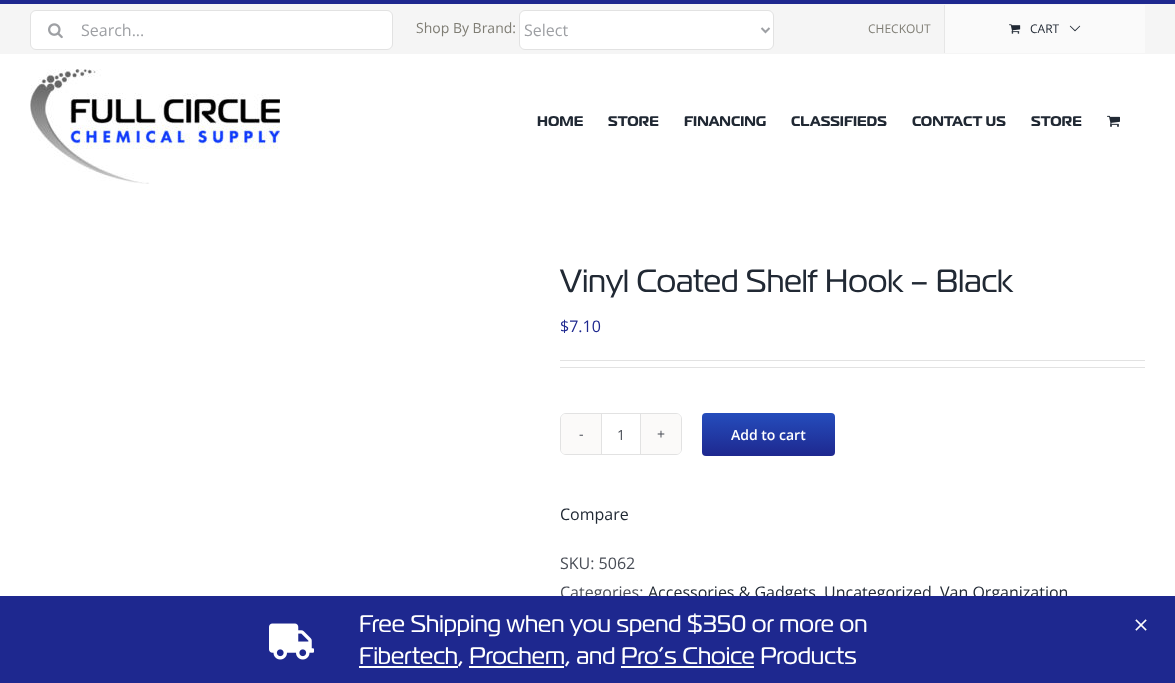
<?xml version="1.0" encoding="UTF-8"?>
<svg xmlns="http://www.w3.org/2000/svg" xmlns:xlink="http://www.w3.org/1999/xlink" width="1175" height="683">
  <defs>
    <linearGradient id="g1" gradientUnits="userSpaceOnUse" x1="769" y1="413" x2="769" y2="456"><stop offset="0" stop-color="#254dbc" /><stop offset="1" stop-color="#1e288f" /></linearGradient>
  </defs>
  <rect width="100%" height="100%" fill="#ffffff" />
  <rect y="4" width="1175" height="50" fill="#f5f5f5" />
  <rect width="1175" height="4" fill="#1e288f" />
  <rect x="30.5" y="10.5" width="362" height="39" rx="5.5" fill="#ffffff" stroke="#e2e2e2" />
  <image x="48" y="23" width="15" height="16" xlink:href="image1.png" />
  <rect x="519.5" y="10.5" width="254" height="39" rx="5.5" fill="#ffffff" stroke="#e2e2e2" />
  <path d="M 761.5 28 l 4 4 l 4 -4" fill="none" stroke="#9ea0a4" stroke-width="2" />
  <rect x="944" y="5" width="1" height="48" fill="#e6e6e6" />
  <rect x="945" y="5" width="200" height="48" fill="#fafafa" />
  <image x="1009" y="24" width="12" height="10" xlink:href="image2.png" />
  <image x="1069" y="25" width="12" height="7" xlink:href="image3.png" />
  <image x="30" y="69" width="250" height="115" xlink:href="image4.png" />
  <image x="1107" y="115" width="13" height="12" xlink:href="image5.png" />
  <rect x="560" y="360" width="585" height="1" fill="#e2e2e2" />
  <rect x="560" y="367" width="585" height="1" fill="#e2e2e2" />
  <rect x="560.5" y="413.5" width="121" height="41" rx="5.5" fill="none" stroke="#e2e2e2" />
  <path d="M 566 414 h 35 v 40 h -35 c -3 0 -5 -2 -5 -5 v -30 c 0 -3 2 -5 5 -5 z" fill="#fbfaf9" />
  <rect x="640" y="414" width="1" height="40" fill="#e2e2e2" />
  <rect x="601" y="414" width="1" height="40" fill="#e2e2e2" />
  <path d="M 641 414 h 35 c 3 0 5 2 5 5 v 30 c 0 3 -2 5 -5 5 h -35 z" fill="#fbfaf9" />
  <rect x="702" y="413" width="133" height="43" rx="4" fill="url(#g1)" />
  <text x="81" y="36" style="font-family: Open Sans; font-size: 16px; fill: #9ea0a4">Search...</text>
  <text x="416" y="33" style="font-family: Open Sans; font-size: 14px; fill: #7f7d74">Shop By Brand:</text>
  <text x="524" y="36" style="font-family: Open Sans; font-size: 16px; fill: #9ea0a4">Select</text>
  <text x="868" y="33" style="font-family: Open Sans; font-size: 12px; fill: #7f7d74">CHECKOUT</text>
  <text x="1030" y="33" style="font-family: Open Sans; font-size: 12px; fill: #212934">CART</text>
  <text x="537" y="126" style="font-family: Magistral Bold; font-size: 14px; font-weight: bold; fill: #212934">HOME</text>
  <text x="608" y="126" style="font-family: Magistral Bold; font-size: 14px; font-weight: bold; fill: #212934">STORE</text>
  <text x="684" y="126" style="font-family: Magistral Bold; font-size: 14px; font-weight: bold; fill: #212934">FINANCING</text>
  <text x="791" y="126" style="font-family: Magistral Bold; font-size: 14px; font-weight: bold; fill: #212934">CLASSIFIEDS</text>
  <text x="912" y="126" style="font-family: Magistral Bold; font-size: 14px; font-weight: bold; fill: #212934">CONTACT US</text>
  <text x="1031" y="126" style="font-family: Magistral Bold; font-size: 14px; font-weight: bold; fill: #212934">STORE</text>
  <text x="560" y="292" style="font-family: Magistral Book; font-size: 32px; fill: #212934">Vinyl Coated Shelf Hook – Black</text>
  <text x="560" y="332" style="font-family: Open Sans; font-size: 16px; fill: #1e288f">$7.10</text>
  <text x="579" y="439" style="font-family: Open Sans; font-size: 14px; fill: #4a4e57">-</text>
  <text x="617" y="440" style="font-family: Open Sans; font-size: 14px; fill: #4a4e57">1</text>
  <text x="657" y="439" style="font-family: Open Sans; font-size: 14px; fill: #4a4e57">+</text>
  <text x="731" y="440" style="font-family: Open Sans; font-size: 14px; font-weight: 600; fill: #ffffff">Add to cart</text>
  <text x="560" y="520" style="font-family: Open Sans; font-size: 16px; fill: #212934">Compare</text>
  <text x="560" y="569" style="font-family: Open Sans; font-size: 16px; fill: #4a4e57">SKU: 5062</text>
  <text x="560" y="598" style="font-family: Open Sans; font-size: 16px; fill: #4a4e57">Categories:</text>
  <text x="648" y="598" style="font-family: Open Sans; font-size: 16px; fill: #212934">Accessories &amp; Gadgets</text>
  <text x="824" y="598" style="font-family: Open Sans; font-size: 16px; fill: #212934">Uncategorized</text>
  <text x="940" y="598" style="font-family: Open Sans; font-size: 16px; fill: #212934">Van Organization</text>
  <rect y="596" width="1175" height="87" fill="#1e288f" />
  <image x="269" y="623" width="45" height="37" xlink:href="image6.png" />
  <text x="359" y="632" style="font-family: Magistral Book; font-size: 24px; fill: #ffffff">Free Shipping when you spend $350 or more on</text>
  <rect x="359" y="666" width="99" height="2" fill="#ffffff" />
  <text x="359" y="664" style="font-family: Magistral Book; font-size: 24px; fill: #ffffff">Fibertech, Prochem, and Pro’s Choice Products</text>
  <rect x="469" y="666" width="95" height="2" fill="#ffffff" />
  <rect x="621" y="666" width="133" height="2" fill="#ffffff" />
  <image x="1135" y="619" width="12" height="12" xlink:href="image7.png" />
</svg>
